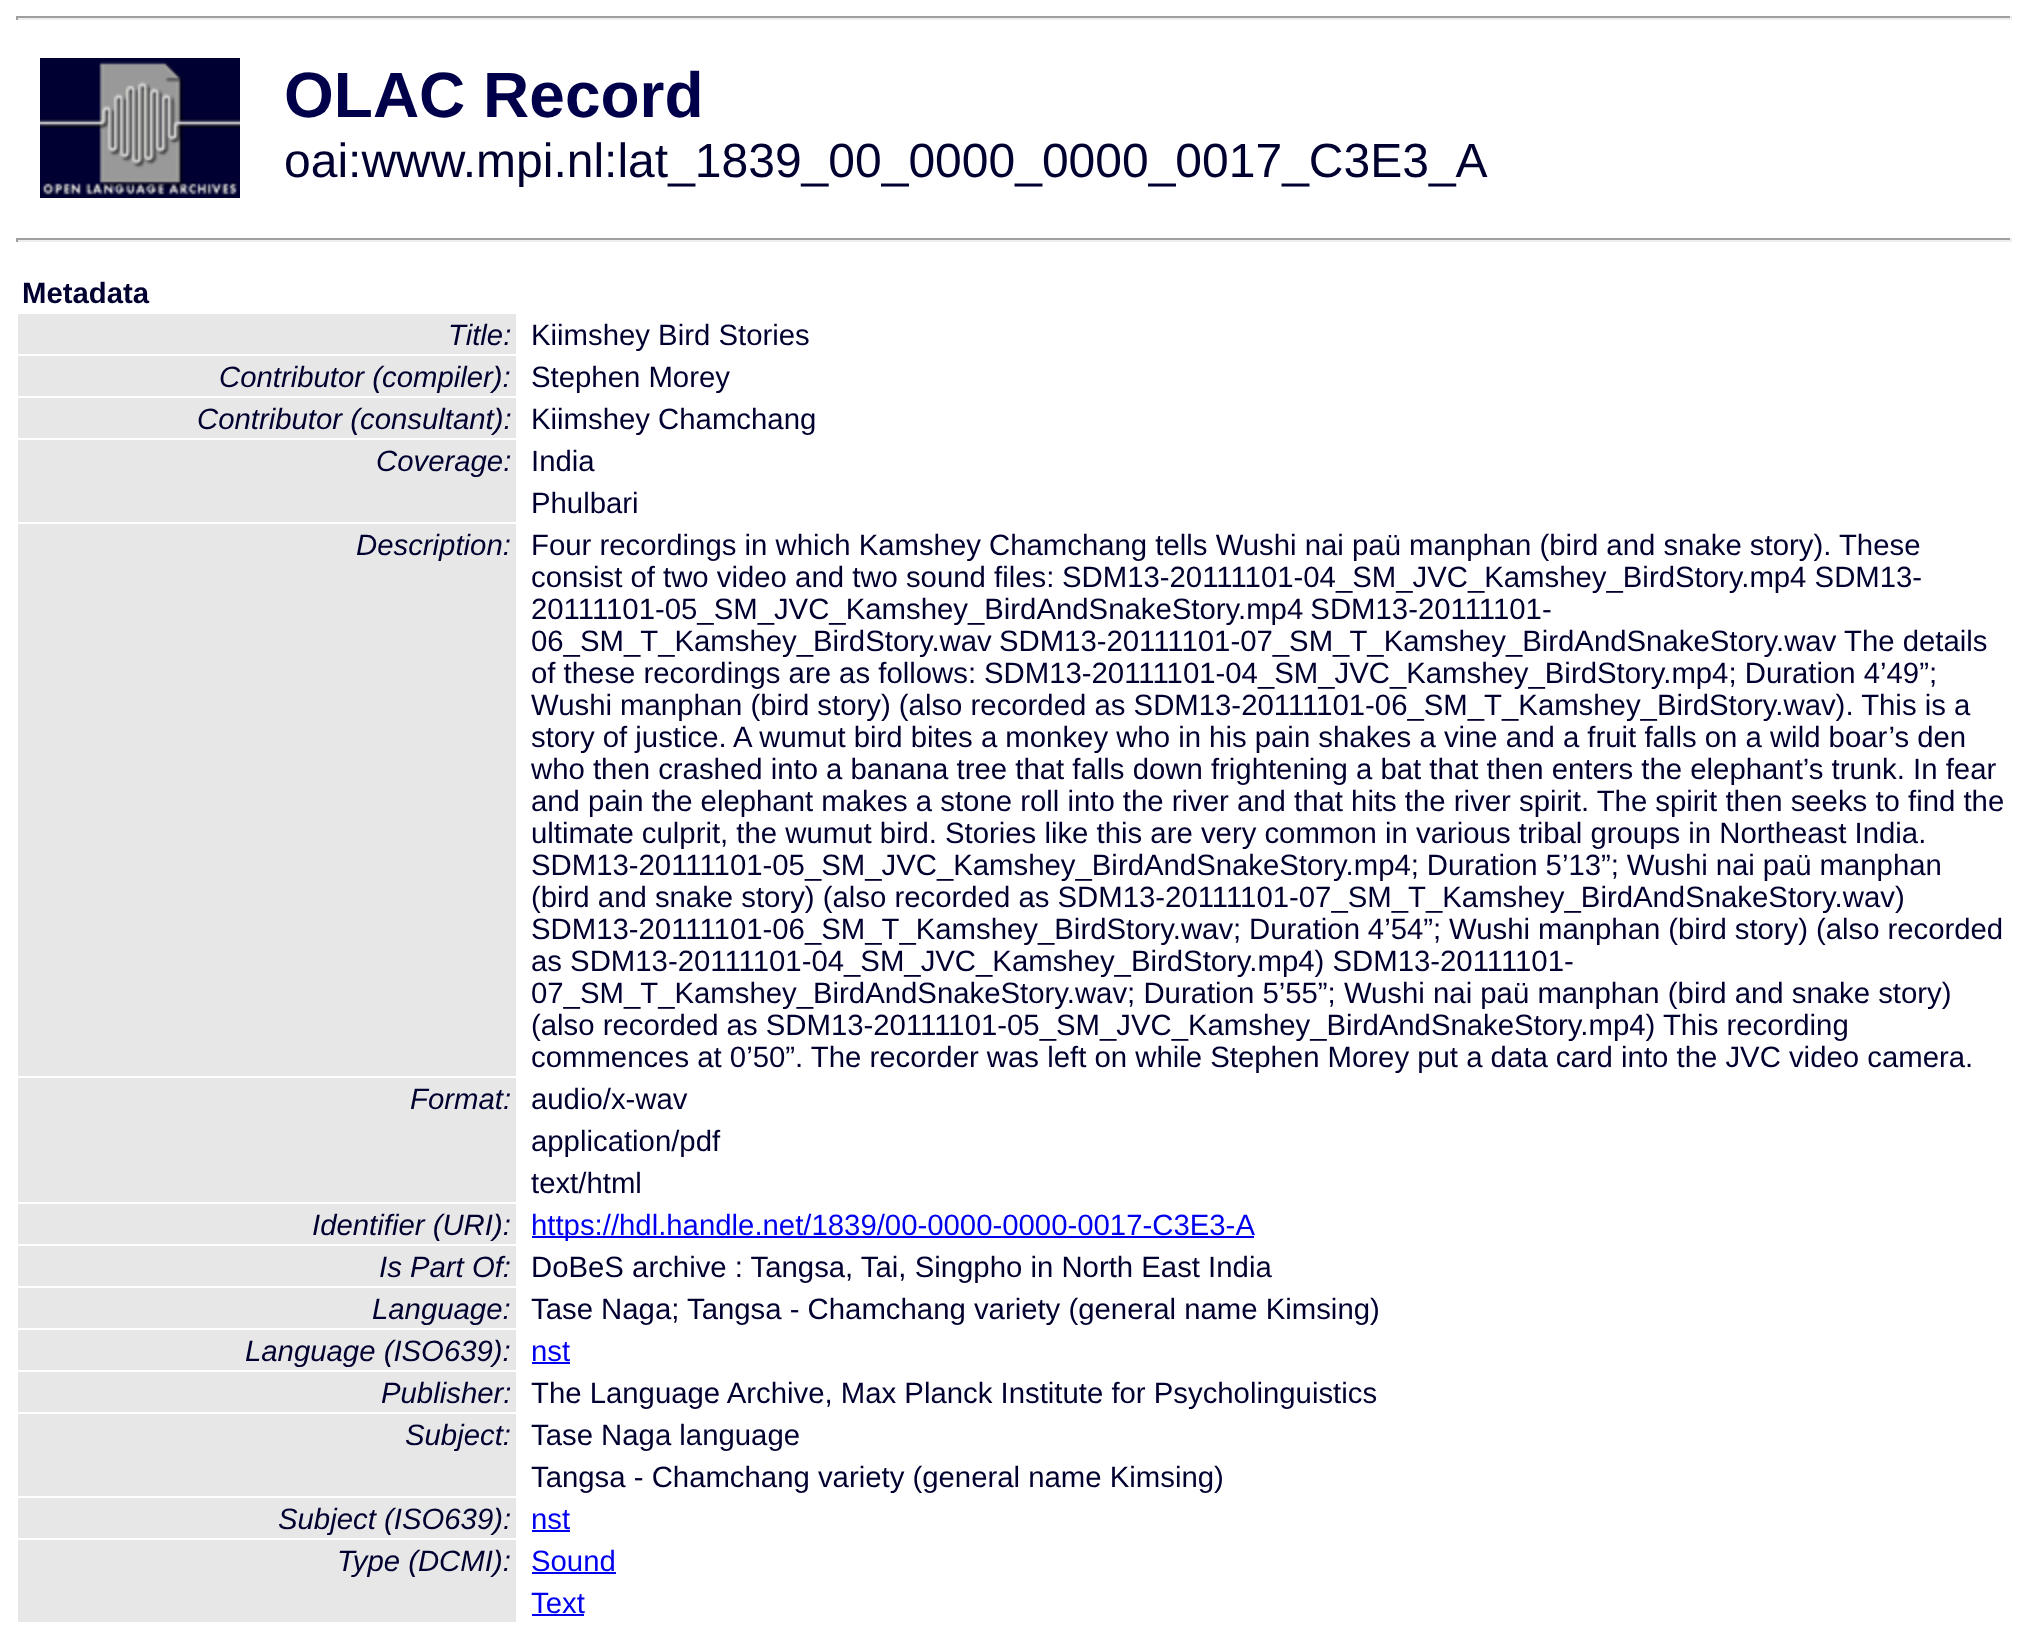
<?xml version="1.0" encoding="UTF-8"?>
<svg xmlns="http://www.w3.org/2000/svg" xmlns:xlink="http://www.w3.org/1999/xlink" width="2028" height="1640">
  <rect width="100%" height="100%" fill="#ffffff" />
  <rect x="16" y="16" width="1996" height="2" fill="#9f9f9f" />
  <rect x="2010" y="16" width="2" height="4" fill="#eeeeee" />
  <rect x="16" y="18" width="1996" height="2" fill="#eeeeee" />
  <rect x="16" y="16" width="2" height="4" fill="#9f9f9f" />
  <image x="40" y="58" width="200" height="140" xlink:href="image1.png" />
  <rect x="16" y="238" width="1996" height="2" fill="#9f9f9f" />
  <rect x="2010" y="238" width="2" height="4" fill="#eeeeee" />
  <rect x="16" y="240" width="1996" height="2" fill="#eeeeee" />
  <rect x="16" y="238" width="2" height="4" fill="#9f9f9f" />
  <rect x="18" y="314" width="498" height="40" fill="#e7e7e7" />
  <rect x="18" y="356" width="498" height="40" fill="#e7e7e7" />
  <rect x="18" y="398" width="498" height="40" fill="#e7e7e7" />
  <rect x="18" y="440" width="498" height="82" fill="#e7e7e7" />
  <rect x="18" y="524" width="498" height="552" fill="#e7e7e7" />
  <rect x="18" y="1078" width="498" height="124" fill="#e7e7e7" />
  <rect x="18" y="1204" width="498" height="40" fill="#e7e7e7" />
  <rect x="532" y="1236" width="722" height="2" fill="#0000ee" />
  <rect x="18" y="1246" width="498" height="40" fill="#e7e7e7" />
  <rect x="18" y="1288" width="498" height="40" fill="#e7e7e7" />
  <rect x="18" y="1330" width="498" height="40" fill="#e7e7e7" />
  <rect x="532" y="1362" width="38" height="2" fill="#0000ee" />
  <rect x="18" y="1372" width="498" height="40" fill="#e7e7e7" />
  <rect x="18" y="1414" width="498" height="82" fill="#e7e7e7" />
  <rect x="18" y="1498" width="498" height="40" fill="#e7e7e7" />
  <rect x="532" y="1530" width="38" height="2" fill="#0000ee" />
  <rect x="18" y="1540" width="498" height="82" fill="#e7e7e7" />
  <rect x="532" y="1572" width="84" height="2" fill="#0000ee" />
  <rect x="532" y="1614" width="52" height="2" fill="#0000ee" />
  <text x="284" y="117" style="font-family: Liberation Sans; font-size: 64px; font-weight: bold; fill: #00004a">OLAC Record</text>
  <text x="284" y="177" style="font-family: Liberation Sans; font-size: 48px; fill: #000030">oai:www.mpi.nl:lat_1839_00_0000_0000_0017_C3E3_A</text>
  <text x="22" y="303" style="font-family: Liberation Sans; font-size: 29.33px; font-weight: bold; fill: #000030">Metadata</text>
  <text x="448" y="345" style="font-family: Liberation Sans; font-size: 29.33px; font-style: italic; fill: #000030">Title:</text>
  <text x="531" y="345" style="font-family: Liberation Sans; font-size: 29.33px; fill: #000030">Kiimshey Bird Stories</text>
  <text x="219" y="387" style="font-family: Liberation Sans; font-size: 29.33px; font-style: italic; fill: #000030">Contributor (compiler):</text>
  <text x="531" y="387" style="font-family: Liberation Sans; font-size: 29.33px; fill: #000030">Stephen Morey</text>
  <text x="197" y="429" style="font-family: Liberation Sans; font-size: 29.33px; font-style: italic; fill: #000030">Contributor (consultant):</text>
  <text x="531" y="429" style="font-family: Liberation Sans; font-size: 29.33px; fill: #000030">Kiimshey Chamchang</text>
  <text x="376" y="471" style="font-family: Liberation Sans; font-size: 29.33px; font-style: italic; fill: #000030">Coverage:</text>
  <text x="531" y="471" style="font-family: Liberation Sans; font-size: 29.33px; fill: #000030">India</text>
  <text x="531" y="513" style="font-family: Liberation Sans; font-size: 29.33px; fill: #000030">Phulbari</text>
  <text x="356" y="555" style="font-family: Liberation Sans; font-size: 29.33px; font-style: italic; fill: #000030">Description:</text>
  <text x="531" y="555" style="font-family: Liberation Sans; font-size: 29.33px; fill: #000030">Four recordings in which Kamshey Chamchang tells Wushi nai paü manphan (bird and snake story). These</text>
  <text x="531" y="587" style="font-family: Liberation Sans; font-size: 29.33px; fill: #000030">consist of two video and two sound files:</text>
  <text x="1062" y="587" style="font-family: Liberation Sans; font-size: 29.33px; fill: #000030">SDM13-20111101-04_SM_JVC_Kamshey_BirdStory.mp4 SDM13-</text>
  <text x="531" y="619" word-spacing="-1" style="font-family: Liberation Sans; font-size: 29.33px; fill: #000030">20111101-05_SM_JVC_Kamshey_BirdAndSnakeStory.mp4 SDM13-20111101-</text>
  <text x="531" y="651" word-spacing="-1" style="font-family: Liberation Sans; font-size: 29.33px; fill: #000030">06_SM_T_Kamshey_BirdStory.wav SDM13-20111101-07_SM_T_Kamshey_BirdAndSnakeStory.wav</text>
  <text x="1844" y="651" style="font-family: Liberation Sans; font-size: 29.33px; fill: #000030">The details</text>
  <text x="531" y="683" style="font-family: Liberation Sans; font-size: 29.33px; fill: #000030">of these recordings are as follows:</text>
  <text x="984" y="683" style="font-family: Liberation Sans; font-size: 29.33px; fill: #000030">SDM13-20111101-04_SM_JVC_Kamshey_BirdStory.mp4; Duration 4’49”;</text>
  <text x="531" y="715" style="font-family: Liberation Sans; font-size: 29.33px; fill: #000030">Wushi manphan (bird story) (also recorded as SDM13-20111101-06_SM_T_Kamshey_BirdStory.wav). This is a</text>
  <text x="531" y="747" style="font-family: Liberation Sans; font-size: 29.33px; fill: #000030">story of justice. A wumut bird bites a monkey who in his pain shakes a vine and a fruit falls on a wild boar’s den</text>
  <text x="531" y="779" style="font-family: Liberation Sans; font-size: 29.33px; fill: #000030">who then crashed into a banana tree that falls down frightening a bat that then enters the elephant’s trunk. In fear</text>
  <text x="531" y="811" style="font-family: Liberation Sans; font-size: 29.33px; fill: #000030">and pain the elephant makes a stone roll into the river and that hits the river spirit. The spirit then seeks to find the</text>
  <text x="531" y="843" style="font-family: Liberation Sans; font-size: 29.33px; fill: #000030">ultimate culprit, the wumut bird.</text>
  <text x="945" y="843" style="font-family: Liberation Sans; font-size: 29.33px; fill: #000030">Stories like this are very common in various tribal groups in Northeast India.</text>
  <text x="531" y="875" word-spacing="-0.25" style="font-family: Liberation Sans; font-size: 29.33px; fill: #000030">SDM13-20111101-05_SM_JVC_Kamshey_BirdAndSnakeStory.mp4; Duration 5’13”; Wushi nai paü manphan</text>
  <text x="531" y="907" style="font-family: Liberation Sans; font-size: 29.33px; fill: #000030">(bird and snake story) (also recorded as SDM13-20111101-07_SM_T_Kamshey_BirdAndSnakeStory.wav)</text>
  <text x="531" y="939" word-spacing="-0.25" style="font-family: Liberation Sans; font-size: 29.33px; fill: #000030">SDM13-20111101-06_SM_T_Kamshey_BirdStory.wav; Duration 4’54”; Wushi manphan (bird story) (also recorded</text>
  <text x="531" y="971" style="font-family: Liberation Sans; font-size: 29.33px; fill: #000030">as SDM13-20111101-04_SM_JVC_Kamshey_BirdStory.mp4) SDM13-20111101-</text>
  <text x="531" y="1003" style="font-family: Liberation Sans; font-size: 29.33px; fill: #000030">07_SM_T_Kamshey_BirdAndSnakeStory.wav; Duration 5’55”; Wushi nai paü manphan (bird and snake story)</text>
  <text x="531" y="1035" style="font-family: Liberation Sans; font-size: 29.33px; fill: #000030">(also recorded as SDM13-20111101-05_SM_JVC_Kamshey_BirdAndSnakeStory.mp4) This recording</text>
  <text x="531" y="1067" style="font-family: Liberation Sans; font-size: 29.33px; fill: #000030">commences at 0’50”. The recorder was left on while Stephen Morey put a data card into the JVC video camera.</text>
  <text x="410" y="1109" style="font-family: Liberation Sans; font-size: 29.33px; font-style: italic; fill: #000030">Format:</text>
  <text x="531" y="1109" style="font-family: Liberation Sans; font-size: 29.33px; fill: #000030">audio/x-wav</text>
  <text x="531" y="1151" style="font-family: Liberation Sans; font-size: 29.33px; fill: #000030">application/pdf</text>
  <text x="531" y="1193" style="font-family: Liberation Sans; font-size: 29.33px; fill: #000030">text/html</text>
  <text x="312" y="1235" style="font-family: Liberation Sans; font-size: 29.33px; font-style: italic; fill: #000030">Identifier (URI):</text>
  <text x="531" y="1235" style="font-family: Liberation Sans; font-size: 29.33px; fill: #0000ee">https://hdl.handle.net/1839/00-0000-0000-0017-C3E3-A</text>
  <text x="379" y="1277" style="font-family: Liberation Sans; font-size: 29.33px; font-style: italic; fill: #000030">Is Part Of:</text>
  <text x="531" y="1277" style="font-family: Liberation Sans; font-size: 29.33px; fill: #000030">DoBeS archive : Tangsa, Tai, Singpho in North East India</text>
  <text x="372" y="1319" style="font-family: Liberation Sans; font-size: 29.33px; font-style: italic; fill: #000030">Language:</text>
  <text x="531" y="1319" style="font-family: Liberation Sans; font-size: 29.33px; fill: #000030">Tase Naga; Tangsa - Chamchang variety (general name Kimsing)</text>
  <text x="245" y="1361" style="font-family: Liberation Sans; font-size: 29.33px; font-style: italic; fill: #000030">Language (ISO639):</text>
  <text x="531" y="1361" style="font-family: Liberation Sans; font-size: 29.33px; fill: #0000ee">nst</text>
  <text x="381" y="1403" style="font-family: Liberation Sans; font-size: 29.33px; font-style: italic; fill: #000030">Publisher:</text>
  <text x="531" y="1403" style="font-family: Liberation Sans; font-size: 29.33px; fill: #000030">The Language Archive, Max Planck Institute for Psycholinguistics</text>
  <text x="405" y="1445" style="font-family: Liberation Sans; font-size: 29.33px; font-style: italic; fill: #000030">Subject:</text>
  <text x="531" y="1445" style="font-family: Liberation Sans; font-size: 29.33px; fill: #000030">Tase Naga language</text>
  <text x="531" y="1487" style="font-family: Liberation Sans; font-size: 29.33px; fill: #000030">Tangsa - Chamchang variety (general name Kimsing)</text>
  <text x="278" y="1529" style="font-family: Liberation Sans; font-size: 29.33px; font-style: italic; fill: #000030">Subject (ISO639):</text>
  <text x="531" y="1529" style="font-family: Liberation Sans; font-size: 29.33px; fill: #0000ee">nst</text>
  <text x="337" y="1571" style="font-family: Liberation Sans; font-size: 29.33px; font-style: italic; fill: #000030">Type (DCMI):</text>
  <text x="531" y="1571" style="font-family: Liberation Sans; font-size: 29.33px; fill: #0000ee">Sound</text>
  <text x="531" y="1613" style="font-family: Liberation Sans; font-size: 29.33px; fill: #0000ee">Text</text>
</svg>
